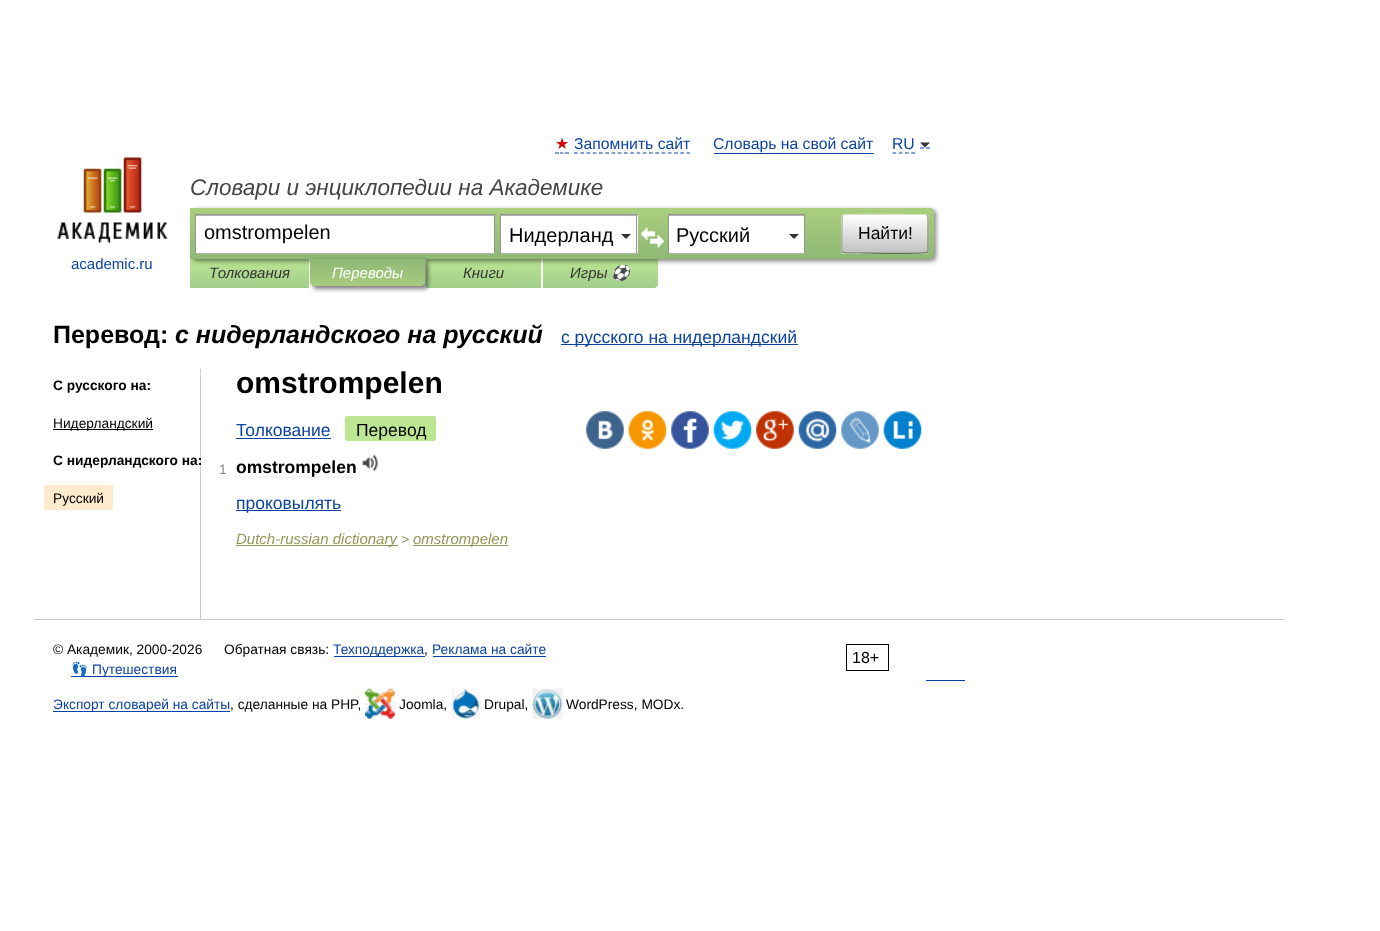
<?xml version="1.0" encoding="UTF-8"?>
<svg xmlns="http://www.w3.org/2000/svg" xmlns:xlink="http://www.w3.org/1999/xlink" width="1380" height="931">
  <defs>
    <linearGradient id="g1" gradientUnits="userSpaceOnUse" x1="249" y1="259" x2="249" y2="288"><stop offset="0" stop-color="#bde693" /><stop offset="1" stop-color="#a0ce8a" /></linearGradient>
    <linearGradient id="g2" gradientUnits="userSpaceOnUse" x1="484" y1="259" x2="484" y2="288"><stop offset="0" stop-color="#bde693" /><stop offset="1" stop-color="#a0ce8a" /></linearGradient>
    <linearGradient id="g3" gradientUnits="userSpaceOnUse" x1="600" y1="259" x2="600" y2="288"><stop offset="0" stop-color="#bde693" /><stop offset="1" stop-color="#a0ce8a" /></linearGradient>
    <linearGradient id="g4" gradientUnits="userSpaceOnUse" x1="562" y1="207" x2="562" y2="259"><stop offset="0" stop-color="#abcf7e" /><stop offset="1" stop-color="#8eb874" /></linearGradient>
    <clipPath id="clip1"><rect x="841" y="214" width="88" height="40" rx="4" /></clipPath>
    <linearGradient id="g5" gradientUnits="userSpaceOnUse" x1="885" y1="178" x2="885" y2="215"><stop offset="0" stop-color="#ffffff" /><stop offset="1" stop-color="#c1c1c1" /></linearGradient>
    <linearGradient id="g6" gradientUnits="userSpaceOnUse" x1="885" y1="215" x2="885" y2="253"><stop offset="0" stop-color="#ffffff" /><stop offset="1" stop-color="#c1c1c1" /></linearGradient>
    <linearGradient id="g7" gradientUnits="userSpaceOnUse" x1="885" y1="253" x2="885" y2="290"><stop offset="0" stop-color="#ffffff" /><stop offset="1" stop-color="#c1c1c1" /></linearGradient>
    <linearGradient id="g8" gradientUnits="userSpaceOnUse" x1="368" y1="259" x2="368" y2="286"><stop offset="0" stop-color="#8fb875" /><stop offset="1" stop-color="#a7cc7d" /></linearGradient>
  </defs>
  <rect width="100%" height="100%" fill="#ffffff" />
  <path d="M 555 153 h 4 m 1 0 h 3.5 m 1.5 0 h 4" fill="none" stroke="#0044aa" stroke-width="1.2" />
  <path d="M 574 153 h 116" fill="none" stroke="#0044aa" stroke-width="1.2" stroke-dasharray="3.75 2.5" />
  <rect x="714" y="153" width="160" height="1" fill="#0d44a0" />
  <path d="M 892.5 153 h 22.5" fill="none" stroke="#0044aa" stroke-width="1.2" stroke-dasharray="3.75 2.5" />
  <path d="M 920 148 h 4 m 2 0 h 4" fill="none" stroke="#0044aa" stroke-width="1.2" />
  <path d="M 920 142.5 h 10 l -5 5 z" fill="#333333" />
  <rect x="190" y="259" width="119" height="29" fill="url(#g1)" />
  <rect x="426" y="259" width="115" height="29" fill="url(#g2)" />
  <path d="M 543 259 h 115 v 25 c 0 2 -2 4 -4 4 h -111 z" fill="url(#g3)" />
  <rect x="193" y="210" width="743" height="51" rx="4" fill="#000000" fill-opacity="0.5" filter="blur(2.5px)" />
  <path d="M 190 208 h 740 c 2 0 4 2 4 4 v 43 c 0 2 -2 4 -4 4 h -740 z" fill="url(#g4)" />
  <rect x="196" y="216" width="298" height="37" fill="#ffffff" />
  <rect x="196" y="215" width="298" height="1" fill="#b3b3b3" />
  <rect x="195" y="214" width="300" height="1" fill="#949494" />
  <rect x="494" y="214" width="1" height="40" fill="#949494" />
  <rect x="195" y="253" width="300" height="1" fill="#b4b4b4" />
  <rect x="195" y="214" width="1" height="40" fill="#949494" />
  <rect x="501" y="215" width="137" height="38" fill="#ffffff" />
  <rect x="501" y="215" width="135" height="1" fill="#b3b3b3" />
  <rect x="500" y="214" width="138" height="1" fill="#949494" />
  <rect x="636" y="214" width="1" height="40" fill="#949494" />
  <rect x="500" y="253" width="138" height="1" fill="#b4b4b4" />
  <rect x="500" y="214" width="1" height="40" fill="#949494" />
  <path d="M 621 234 h 10 l -5 5 z" fill="#333333" />
  <image x="641" y="227" width="23" height="21" xlink:href="image1.png" />
  <rect x="669" y="216" width="135" height="37" fill="#ffffff" />
  <rect x="669" y="215" width="135" height="1" fill="#b3b3b3" />
  <rect x="668" y="214" width="137" height="1" fill="#949494" />
  <rect x="804" y="214" width="1" height="40" fill="#949494" />
  <rect x="668" y="253" width="137" height="1" fill="#b4b4b4" />
  <rect x="668" y="214" width="1" height="40" fill="#949494" />
  <path d="M 789 234 h 10 l -5 5 z" fill="#333333" />
  <g clip-path="url(#clip1)">
    <rect x="841" y="214" width="88" height="1" fill="url(#g5)" />
    <rect x="841" y="215" width="88" height="38" fill="url(#g6)" />
    <rect x="841" y="253" width="88" height="1" fill="url(#g7)" />
  </g>
  <path d="M 843 215.5 v -0.5 c 2 -1.5 61 -0.5 68.5 -0.5 h 13.5 l 2 1" fill="none" stroke="#d1e4bc" stroke-width="1.2" />
  <path d="M 927 215.5 c 1 0.5 1 1 1 2 v 32.5 c 0 1 0 1.5 -1 2" fill="none" stroke="#7a8e69" stroke-width="1.2" />
  <path d="M 927 252 v 0.5 c -2 1.5 -61 0.5 -68.5 0.5 h -13.5 l -2 -1" fill="none" stroke="#5d7250" stroke-width="1.2" />
  <path d="M 843 252 c -1 -0.5 -1 -1 -1 -2 v -32.5 c 0 -1 0 -1.5 1 -2" fill="none" stroke="#9aae89" stroke-width="1.2" />
  <image x="57" y="157" width="111" height="86" xlink:href="image2.png" />
  <rect x="313" y="261" width="115" height="28" rx="4" fill="#000000" fill-opacity="0.5" filter="blur(2px)" />
  <path d="M 310 259 h 115 v 23 c 0 2 -2 4 -4 4 h -107 c -2 0 -4 -2 -4 -4 z" fill="url(#g8)" />
  <rect x="561" y="344" width="237" height="1" fill="#0d44a0" />
  <rect x="200" y="369" width="1" height="250" fill="#cccccc" />
  <rect x="53" y="429" width="100" height="1" fill="#000000" />
  <rect x="44" y="485" width="69" height="25" fill="#fcebcc" />
  <rect x="236" y="438" width="95" height="1" fill="#0d44a0" />
  <rect x="345" y="416" width="91" height="25" rx="2.5" fill="#bde693" />
  <image x="586" y="411" width="38" height="38" xlink:href="image3.png" />
  <image x="628" y="411" width="39" height="38" xlink:href="image4.png" />
  <image x="671" y="411" width="38" height="38" xlink:href="image5.png" />
  <image x="713" y="411" width="39" height="38" xlink:href="image6.png" />
  <image x="756" y="411" width="38" height="38" xlink:href="image7.png" />
  <image x="798" y="411" width="39" height="38" xlink:href="image8.png" />
  <image x="841" y="411" width="38" height="38" xlink:href="image9.png" />
  <image x="883" y="411" width="39" height="38" xlink:href="image10.png" />
  <path d="M 219 477 h 1 m 1.5 0 h 1 m 1.5 0 h 1" fill="none" stroke="#d9d9d9" stroke-width="1.2" />
  <path d="M 236 477 h 120" fill="none" stroke="#d9d9d9" stroke-width="1.2" stroke-dasharray="1.25 1.25" />
  <image x="362" y="454" width="18" height="19" xlink:href="image11.png" />
  <rect x="236" y="510" width="105" height="1" fill="#0d44a0" />
  <rect x="236" y="545" width="162" height="1" fill="#939756" />
  <rect x="413" y="545" width="95" height="1" fill="#939756" />
  <rect x="34" y="619" width="1250" height="1" fill="#c7c7c7" />
  <rect x="334" y="656" width="91" height="1" fill="#0044aa" />
  <rect x="433" y="656" width="113" height="1" fill="#0044aa" />
  <rect x="846.5" y="644.5" width="42" height="26" fill="none" stroke="#000000" />
  <rect x="71" y="676" width="107" height="1" fill="#0044aa" />
  <rect x="926" y="680" width="39" height="1" fill="#0044aa" />
  <rect x="53" y="711" width="177" height="1" fill="#0044aa" />
  <image x="365" y="688" width="30" height="31" xlink:href="image12.png" />
  <image x="451" y="688" width="31" height="31" xlink:href="image13.png" />
  <image x="532" y="688" width="31" height="31" xlink:href="image14.png" />
  <text x="555" y="149" style="font-family: DejaVu Sans; font-size: 15.75px; fill: #cc0000">★</text>
  <text x="574" y="149" style="font-family: Liberation Sans; font-size: 15.75px; fill: #0d44a0">Запомнить сайт</text>
  <text x="713" y="149" style="font-family: Liberation Sans; font-size: 15.75px; fill: #0d44a0">Словарь на свой сайт</text>
  <text x="892" y="149" style="font-family: Liberation Sans; font-size: 15.75px; fill: #0d44a0">RU</text>
  <text x="190" y="195" style="font-family: Liberation Sans; font-size: 22.5px; font-style: italic; fill: #454545">Словари и энциклопедии на Академике</text>
  <text x="204" y="239" style="font-family: Liberation Sans; font-size: 20px; fill: #000000">omstrompelen</text>
  <text x="509" y="242" style="font-family: Liberation Sans; font-size: 20px; fill: #000000">Нидерланд</text>
  <text x="676" y="242" style="font-family: Liberation Sans; font-size: 20px; fill: #000000">Русский</text>
  <text x="858" y="239" style="font-family: Liberation Sans; font-size: 17.5px; fill: #000000">Найти!</text>
  <text x="71" y="269" style="font-family: Liberation Sans; font-size: 15px; fill: #0d44a0">academic.ru</text>
  <text x="209" y="278" style="font-family: Liberation Sans; font-size: 15px; font-style: italic; fill: #353535">Толкования</text>
  <text x="332" y="278" style="font-family: Liberation Sans; font-size: 15px; font-style: italic; fill: #ffffff">Переводы</text>
  <text x="463" y="278" style="font-family: Liberation Sans; font-size: 15px; font-style: italic; fill: #353535">Книги</text>
  <text x="570" y="278" style="font-family: Liberation Sans; font-size: 15px; font-style: italic; fill: #353535">Игры</text>
  <text x="611" y="278" style="font-family: Noto Color Emoji; font-size: 15px; font-style: italic; fill: #353535">⚽</text>
  <text x="53" y="343" style="font-family: Liberation Sans; font-size: 25px; font-weight: bold; fill: #000000">Перевод:</text>
  <text x="175" y="343" style="font-family: Liberation Sans; font-size: 25px; font-weight: bold; font-style: italic; fill: #000000">с нидерландского на русский</text>
  <text x="561" y="343" style="font-family: Liberation Sans; font-size: 17.5px; fill: #0d44a0">с русского на нидерландский</text>
  <text x="53" y="390" style="font-family: Liberation Sans; font-size: 13.75px; font-weight: bold; fill: #000000">С русского на:</text>
  <text x="53" y="428" style="font-family: Liberation Sans; font-size: 13.75px; fill: #000000">Нидерландский</text>
  <text x="53" y="465" style="font-family: Liberation Sans; font-size: 13.75px; font-weight: bold; fill: #000000">С нидерландского на:</text>
  <text x="53" y="503" style="font-family: Liberation Sans; font-size: 13.75px; fill: #000000">Русский</text>
  <text x="236" y="393" style="font-family: Liberation Sans; font-size: 30px; font-weight: bold; fill: #000000">omstrompelen</text>
  <text x="236" y="436" style="font-family: Liberation Sans; font-size: 17.5px; fill: #0d44a0">Толкование</text>
  <text x="356" y="436" style="font-family: Liberation Sans; font-size: 17.5px; fill: #000000">Перевод</text>
  <text x="219" y="474" style="font-family: Liberation Sans; font-size: 13.75px; fill: #898989">1</text>
  <text x="236" y="473" style="font-family: Liberation Sans; font-size: 17.5px; font-weight: bold; fill: #000000">omstrompelen</text>
  <text x="236" y="509" style="font-family: Liberation Sans; font-size: 17.5px; fill: #0d44a0">проковылять</text>
  <text x="236" y="544" style="font-family: Liberation Sans; font-size: 15px; font-style: italic; fill: #939756">Dutch-russian dictionary</text>
  <text x="401" y="544" style="font-family: Liberation Sans; font-size: 13.75px; font-style: italic; fill: #939756">&gt;</text>
  <text x="413" y="544" style="font-family: Liberation Sans; font-size: 15px; font-style: italic; fill: #939756">omstrompelen</text>
  <text x="53" y="654" style="font-family: Liberation Sans; font-size: 13.75px; fill: #000000">© Академик, 2000-2026</text>
  <text x="224" y="654" style="font-family: Liberation Sans; font-size: 13.75px; fill: #000000">Обратная связь:</text>
  <text x="333" y="654" style="font-family: Liberation Sans; font-size: 13.75px; fill: #0d44a0">Техподдержка</text>
  <text x="424" y="654" style="font-family: Liberation Sans; font-size: 13.75px; fill: #000000">,</text>
  <text x="432" y="654" style="font-family: Liberation Sans; font-size: 13.75px; fill: #0d44a0">Реклама на сайте</text>
  <text x="852" y="663" style="font-family: Liberation Sans; font-size: 16px; fill: #000000">18+</text>
  <text x="71" y="674" style="font-family: Noto Color Emoji; font-size: 13.75px; fill: #0d44a0">👣</text>
  <text x="92" y="674" style="font-family: Liberation Sans; font-size: 13.75px; fill: #0d44a0">Путешествия</text>
  <text x="53" y="709" style="font-family: Liberation Sans; font-size: 13.75px; fill: #0d44a0">Экспорт словарей на сайты</text>
  <text x="230" y="709" style="font-family: Liberation Sans; font-size: 13.75px; fill: #000000">, сделанные на PHP,</text>
  <text x="399" y="709" style="font-family: Liberation Sans; font-size: 13.75px; fill: #000000">Joomla,</text>
  <text x="484" y="709" style="font-family: Liberation Sans; font-size: 13.75px; fill: #000000">Drupal,</text>
  <text x="566" y="709" style="font-family: Liberation Sans; font-size: 13.75px; fill: #000000">WordPress, MODx.</text>
</svg>
